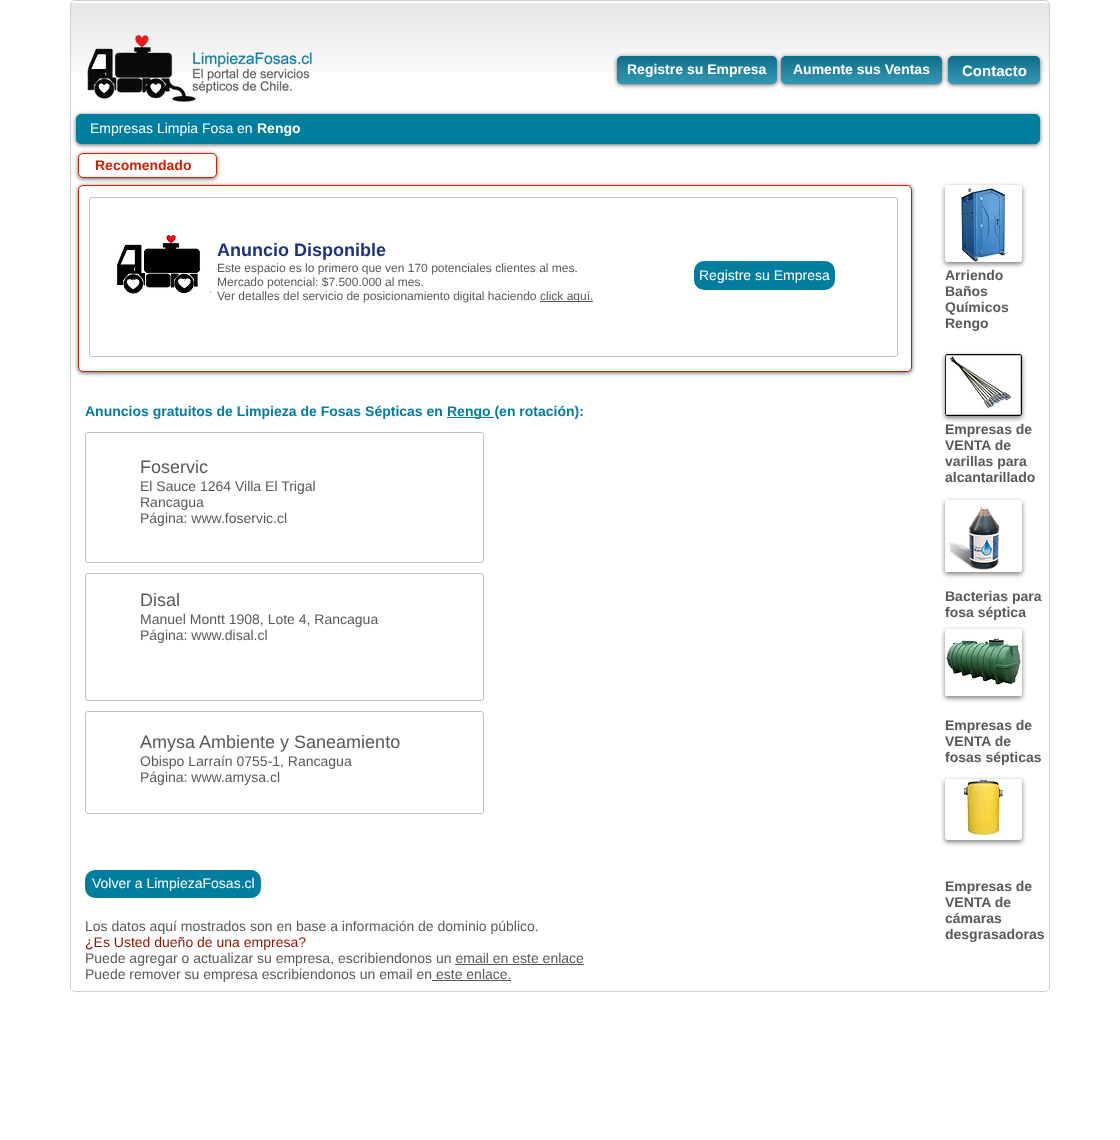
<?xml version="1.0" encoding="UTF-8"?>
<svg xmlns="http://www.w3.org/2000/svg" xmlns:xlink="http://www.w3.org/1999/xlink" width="1120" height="1140">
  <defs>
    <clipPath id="clip1"><path d="M 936 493 h 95 v 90 h -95 z m 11 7 h 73 c 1 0 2 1 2 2 v 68 c 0 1 -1 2 -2 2 h -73 c -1 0 -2 -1 -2 -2 v -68 c 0 -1 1 -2 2 -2 z" clip-rule="evenodd" /></clipPath>
    <clipPath id="clip2"><path d="M 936 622 h 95 v 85 h -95 z m 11 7 h 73 c 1 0 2 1 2 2 v 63 c 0 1 -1 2 -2 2 h -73 c -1 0 -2 -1 -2 -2 v -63 c 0 -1 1 -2 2 -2 z" clip-rule="evenodd" /></clipPath>
  </defs>
  <rect width="100%" height="100%" fill="#ffffff" />
  <image x="70" y="3" width="980" height="69" xlink:href="image1.png" />
  <rect x="70.5" y="0.5" width="979" height="991" rx="4.5" fill="none" stroke="#cfcfcf" />
  <image x="87" y="35" width="225" height="67" xlink:href="image2.png" />
  <rect x="617" y="57" width="160" height="28" rx="5" fill="#000000" fill-opacity="0.6" filter="blur(2px)" />
  <rect x="617" y="56" width="160" height="28" rx="5" fill="#007d9f" />
  <image x="617" y="56" width="160" height="25" xlink:href="image3.png" />
  <image x="617" y="56" width="160" height="28" xlink:href="image4.png" />
  <rect x="781" y="57" width="161" height="28" rx="5" fill="#000000" fill-opacity="0.6" filter="blur(2px)" />
  <rect x="781" y="56" width="161" height="28" rx="5" fill="#007d9f" />
  <image x="781" y="56" width="161" height="25" xlink:href="image5.png" />
  <image x="781" y="56" width="161" height="28" xlink:href="image6.png" />
  <rect x="948" y="57" width="92" height="28" rx="5" fill="#000000" fill-opacity="0.6" filter="blur(2px)" />
  <rect x="948" y="56" width="92" height="28" rx="5" fill="#007d9f" />
  <image x="948" y="56" width="92" height="25" xlink:href="image7.png" />
  <image x="948" y="56" width="92" height="28" xlink:href="image8.png" />
  <rect x="76" y="115" width="964" height="30" rx="5" fill="#000000" fill-opacity="0.6" filter="blur(2px)" />
  <rect x="76.5" y="114.5" width="963" height="29" rx="4.5" fill="#007d9f" stroke="#007d9f" />
  <rect x="78" y="154" width="139" height="25" rx="5" fill="#000000" fill-opacity="0.6" filter="blur(2px)" />
  <rect x="78.5" y="153.5" width="138" height="24" rx="4.5" fill="#ffffff" stroke="#d11f00" />
  <rect x="78" y="186" width="834" height="187" rx="5" fill="#000000" fill-opacity="0.6" filter="blur(2px)" />
  <rect x="78.5" y="185.5" width="833" height="186" rx="4.5" fill="#ffffff" stroke="#d11f00" />
  <rect x="89.5" y="197.5" width="808" height="159" rx="2.5" fill="none" stroke="#c0c0c0" />
  <image x="117" y="234" width="94" height="60" xlink:href="image9.png" />
  <rect x="540" y="301" width="53" height="1" fill="#5a5959" />
  <rect x="694" y="261" width="141" height="29" rx="10" fill="#007d9f" />
  <rect x="945" y="187" width="77" height="77" rx="2" fill="#000000" fill-opacity="0.53" filter="blur(2.5px)" />
  <image x="945" y="185" width="77" height="77" xlink:href="image10.png" />
  <rect x="447" y="417" width="47" height="1" fill="#007d9f" />
  <rect x="945" y="356" width="77" height="62" rx="2" fill="#000000" fill-opacity="0.53" filter="blur(2.5px)" />
  <image x="945" y="354" width="77" height="62" xlink:href="image11.png" />
  <rect x="85.5" y="432.5" width="398" height="130" rx="2.5" fill="none" stroke="#c0c0c0" />
  <g clip-path="url(#clip1)">
    <rect x="945" y="502" width="77" height="72" rx="2" fill="#000000" fill-opacity="0.53" filter="blur(2.5px)" />
  </g>
  <image x="945" y="506" width="77" height="66" xlink:href="image12.png" />
  <rect x="85.5" y="573.5" width="398" height="127" rx="2.5" fill="none" stroke="#c0c0c0" />
  <g clip-path="url(#clip2)">
    <rect x="945" y="631" width="77" height="67" rx="2" fill="#000000" fill-opacity="0.53" filter="blur(2.5px)" />
  </g>
  <image x="945" y="637" width="77" height="59" xlink:href="image13.png" />
  <rect x="85.5" y="711.5" width="398" height="102" rx="2.5" fill="none" stroke="#c0c0c0" />
  <rect x="945" y="781" width="77" height="61" rx="2" fill="#000000" fill-opacity="0.53" filter="blur(2.5px)" />
  <image x="945" y="779" width="77" height="61" xlink:href="image14.png" />
  <rect x="85" y="870" width="176" height="28" rx="10" fill="#007d9f" />
  <rect x="455" y="964" width="129" height="1" fill="#5a5959" />
  <rect x="432" y="980" width="79" height="1" fill="#5a5959" />
  <text x="627" y="74" style="font-family: Liberation Sans; font-size: 14px; font-weight: bold; fill: #ffffff">Registre su Empresa</text>
  <text x="793" y="74" style="font-family: Liberation Sans; font-size: 14px; font-weight: bold; fill: #ffffff">Aumente sus Ventas</text>
  <text x="962" y="76" style="font-family: Liberation Sans; font-size: 15px; font-weight: bold; fill: #ffffff">Contacto</text>
  <text x="90" y="133" style="font-family: Liberation Sans; font-size: 14px; fill: #ffffff">Empresas Limpia Fosa en</text>
  <text x="257" y="133" style="font-family: Liberation Sans; font-size: 14px; font-weight: bold; fill: #ffffff">Rengo</text>
  <text x="95" y="170" style="font-family: Liberation Sans; font-size: 14px; font-weight: bold; fill: #d11f00">Recomendado</text>
  <text x="217" y="256" style="font-family: Liberation Sans; font-size: 18px; font-weight: bold; fill: #1c327f">Anuncio Disponible</text>
  <text x="217" y="272" style="font-family: Liberation Sans; font-size: 12px; fill: #5a5959">Este espacio es lo primero que ven 170 potenciales clientes al mes.</text>
  <text x="217" y="286" style="font-family: Liberation Sans; font-size: 12px; fill: #5a5959">Mercado potencial: $7.500.000 al mes.</text>
  <text x="217" y="300" style="font-family: Liberation Sans; font-size: 12px; fill: #5a5959">Ver detalles del servicio de posicionamiento digital haciendo</text>
  <text x="540" y="300" style="font-family: Liberation Sans; font-size: 12px; fill: #5a5959">click aquí.</text>
  <text x="699" y="280" style="font-family: Liberation Sans; font-size: 14px; fill: #ffffff">Registre su Empresa</text>
  <text x="945" y="280" style="font-family: Liberation Sans; font-size: 14px; font-weight: bold; fill: #5a5959">Arriendo</text>
  <text x="945" y="296" style="font-family: Liberation Sans; font-size: 14px; font-weight: bold; fill: #5a5959">Baños</text>
  <text x="945" y="312" style="font-family: Liberation Sans; font-size: 14px; font-weight: bold; fill: #5a5959">Químicos</text>
  <text x="945" y="328" style="font-family: Liberation Sans; font-size: 14px; font-weight: bold; fill: #5a5959">Rengo</text>
  <text x="85" y="416" style="font-family: Liberation Sans; font-size: 14px; font-weight: bold; fill: #007d9f">Anuncios gratuitos de Limpieza de Fosas Sépticas en</text>
  <text x="447" y="416" style="font-family: Liberation Sans; font-size: 14px; font-weight: bold; fill: #007d9f">Rengo (en rotación):</text>
  <text x="945" y="434" style="font-family: Liberation Sans; font-size: 14px; font-weight: bold; fill: #5a5959">Empresas de</text>
  <text x="945" y="450" style="font-family: Liberation Sans; font-size: 14px; font-weight: bold; fill: #5a5959">VENTA de</text>
  <text x="945" y="466" style="font-family: Liberation Sans; font-size: 14px; font-weight: bold; fill: #5a5959">varillas para</text>
  <text x="945" y="482" style="font-family: Liberation Sans; font-size: 14px; font-weight: bold; fill: #5a5959">alcantarillado</text>
  <text x="140" y="473" style="font-family: Liberation Sans; font-size: 18px; fill: #5a5959">Foservic</text>
  <text x="140" y="491" style="font-family: Liberation Sans; font-size: 14px; fill: #5a5959">El Sauce 1264 Villa El Trigal</text>
  <text x="140" y="507" style="font-family: Liberation Sans; font-size: 14px; fill: #5a5959">Rancagua</text>
  <text x="140" y="523" style="font-family: Liberation Sans; font-size: 14px; fill: #5a5959">Página: www.foservic.cl</text>
  <text x="140" y="606" style="font-family: Liberation Sans; font-size: 18px; fill: #5a5959">Disal</text>
  <text x="140" y="624" style="font-family: Liberation Sans; font-size: 14px; fill: #5a5959">Manuel Montt 1908, Lote 4, Rancagua</text>
  <text x="140" y="640" style="font-family: Liberation Sans; font-size: 14px; fill: #5a5959">Página: www.disal.cl</text>
  <text x="945" y="601" style="font-family: Liberation Sans; font-size: 14px; font-weight: bold; fill: #5a5959">Bacterias para</text>
  <text x="945" y="617" style="font-family: Liberation Sans; font-size: 14px; font-weight: bold; fill: #5a5959">fosa séptica</text>
  <text x="140" y="748" style="font-family: Liberation Sans; font-size: 18px; fill: #5a5959">Amysa Ambiente y Saneamiento</text>
  <text x="140" y="766" style="font-family: Liberation Sans; font-size: 14px; fill: #5a5959">Obispo Larraín 0755-1, Rancagua</text>
  <text x="140" y="782" style="font-family: Liberation Sans; font-size: 14px; fill: #5a5959">Página: www.amysa.cl</text>
  <text x="945" y="730" style="font-family: Liberation Sans; font-size: 14px; font-weight: bold; fill: #5a5959">Empresas de</text>
  <text x="945" y="746" style="font-family: Liberation Sans; font-size: 14px; font-weight: bold; fill: #5a5959">VENTA de</text>
  <text x="945" y="762" style="font-family: Liberation Sans; font-size: 14px; font-weight: bold; fill: #5a5959">fosas sépticas</text>
  <text x="92" y="888" style="font-family: Liberation Sans; font-size: 14px; fill: #ffffff">Volver a LimpiezaFosas.cl</text>
  <text x="945" y="891" style="font-family: Liberation Sans; font-size: 14px; font-weight: bold; fill: #5a5959">Empresas de</text>
  <text x="945" y="907" style="font-family: Liberation Sans; font-size: 14px; font-weight: bold; fill: #5a5959">VENTA de</text>
  <text x="945" y="923" style="font-family: Liberation Sans; font-size: 14px; font-weight: bold; fill: #5a5959">cámaras</text>
  <text x="945" y="939" style="font-family: Liberation Sans; font-size: 14px; font-weight: bold; fill: #5a5959">desgrasadoras</text>
  <text x="85" y="931" style="font-family: Liberation Sans; font-size: 14px; fill: #5a5959">Los datos aquí mostrados son en base a información de dominio público.</text>
  <text x="85" y="947" style="font-family: Liberation Sans; font-size: 14px; fill: #8b1400">¿Es Usted dueño de una empresa?</text>
  <text x="85" y="963" style="font-family: Liberation Sans; font-size: 14px; fill: #5a5959">Puede agregar o actualizar su empresa, escribiendonos un email en este enlace</text>
  <text x="85" y="979" style="font-family: Liberation Sans; font-size: 14px; fill: #5a5959">Puede remover su empresa escribiendonos un email en este enlace.</text>
</svg>
